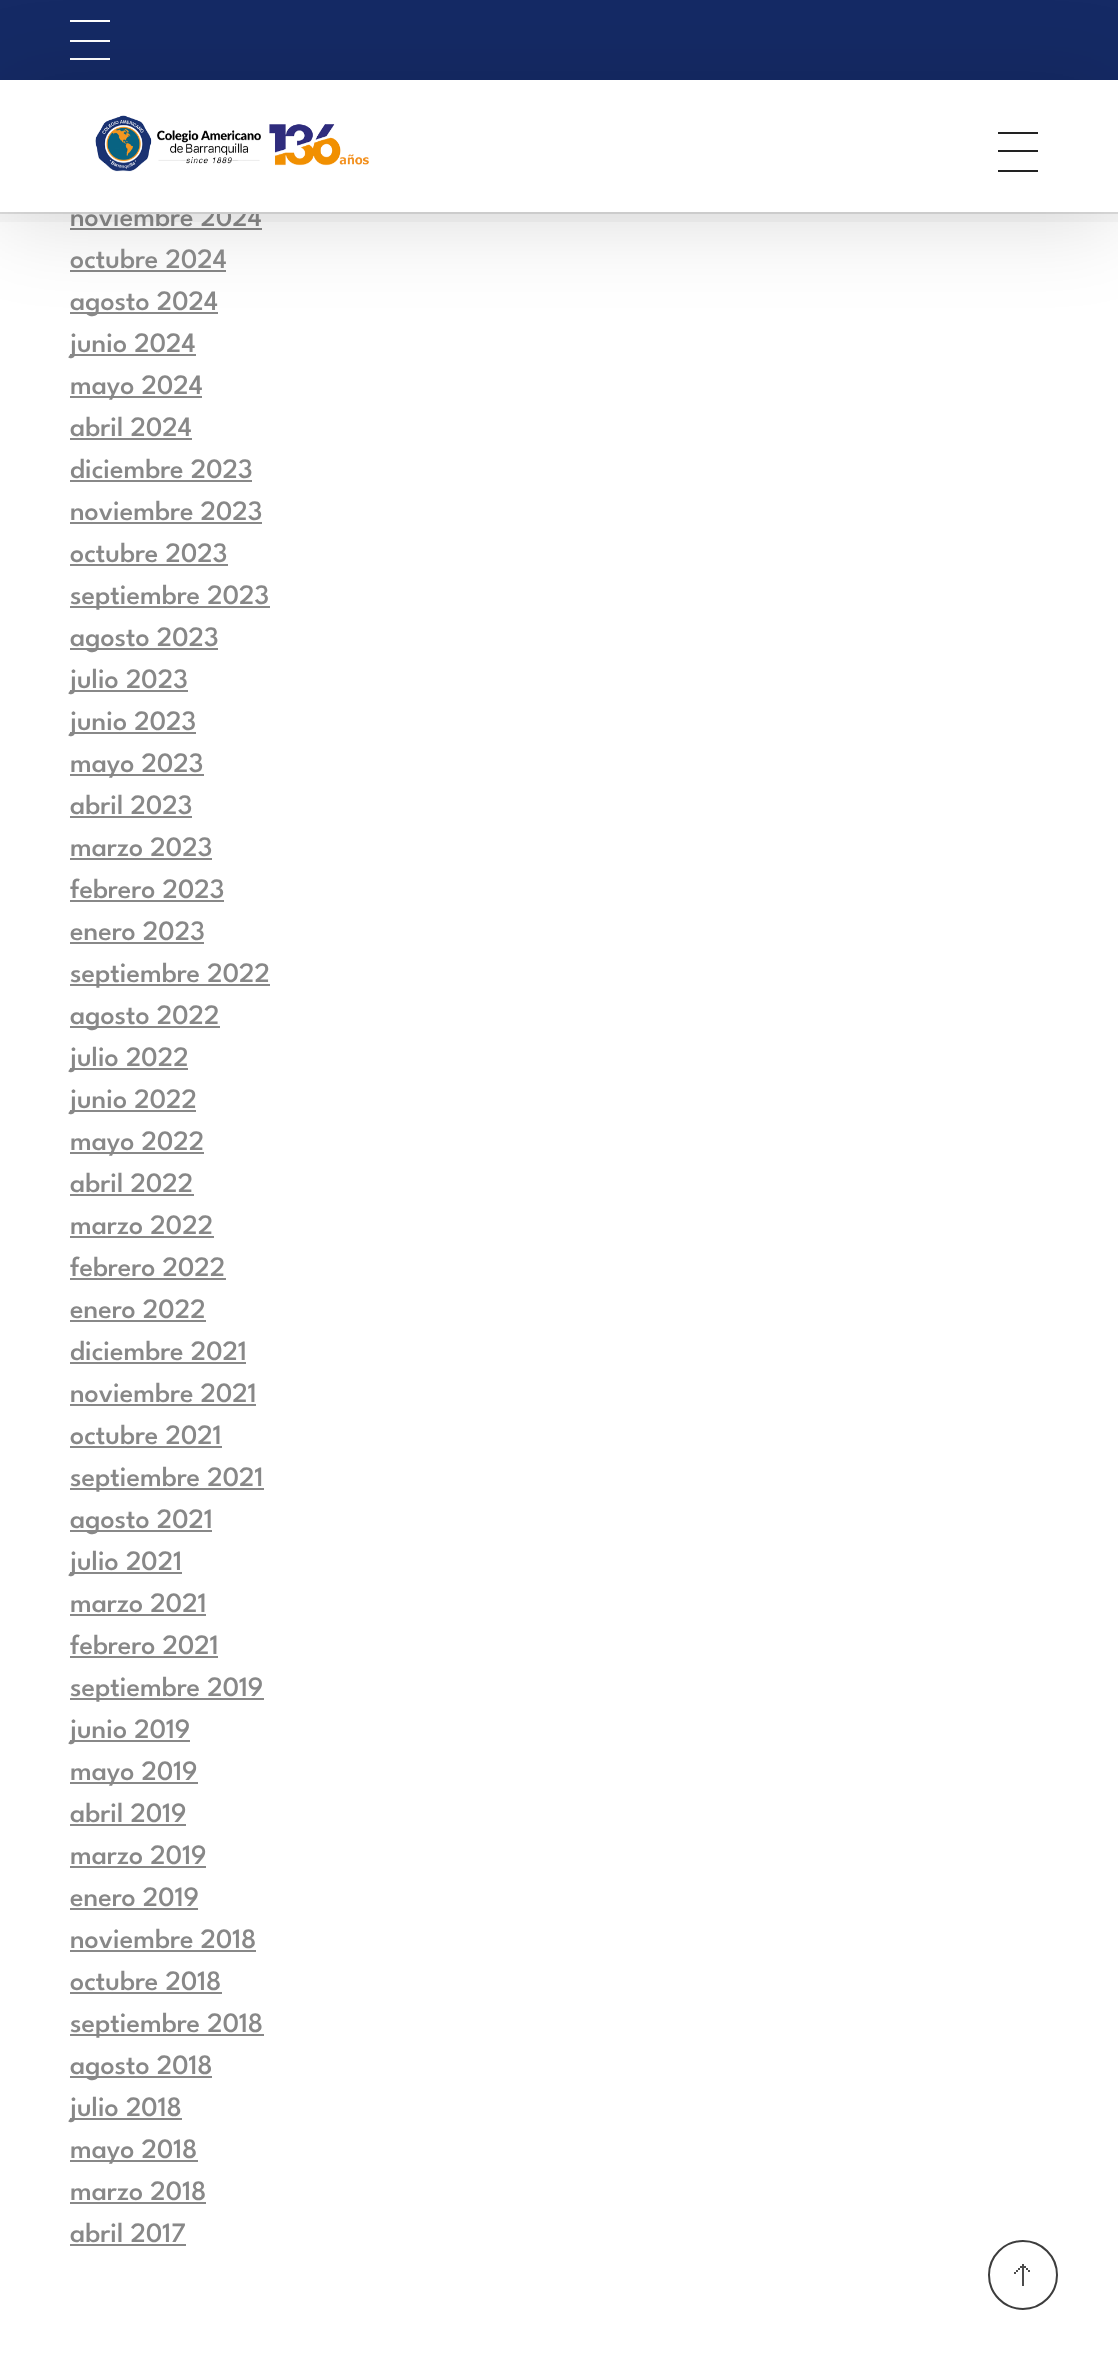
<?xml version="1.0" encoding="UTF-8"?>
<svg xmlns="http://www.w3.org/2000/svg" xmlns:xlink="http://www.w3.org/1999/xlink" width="1118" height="2369">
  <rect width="100%" height="100%" fill="#ffffff" />
  <rect y="214" width="1118" height="8" fill="#222222" fill-opacity="0.03" />
  <rect width="1118" height="80" fill="#152a65" />
  <rect x="70" y="20" width="40" height="2" fill="#ffffff" />
  <rect x="70" y="40" width="40" height="2" fill="#ffffff" />
  <rect x="70" y="58" width="40" height="2" fill="#ffffff" />
  <rect x="70" y="228" width="192" height="2" fill="#888888" />
  <rect x="70" y="270" width="156" height="2" fill="#888888" />
  <rect x="70" y="312" width="148" height="2" fill="#888888" />
  <rect x="70" y="354" width="126" height="2" fill="#888888" />
  <rect x="70" y="396" width="132" height="2" fill="#888888" />
  <rect x="70" y="438" width="122" height="2" fill="#888888" />
  <rect x="70" y="480" width="182" height="2" fill="#888888" />
  <rect x="70" y="522" width="192" height="2" fill="#888888" />
  <rect x="70" y="564" width="158" height="2" fill="#888888" />
  <rect x="70" y="606" width="200" height="2" fill="#888888" />
  <rect x="70" y="648" width="148" height="2" fill="#888888" />
  <rect x="70" y="690" width="118" height="2" fill="#888888" />
  <rect x="70" y="732" width="126" height="2" fill="#888888" />
  <rect x="70" y="774" width="134" height="2" fill="#888888" />
  <rect x="70" y="816" width="122" height="2" fill="#888888" />
  <rect x="70" y="858" width="142" height="2" fill="#888888" />
  <rect x="70" y="900" width="154" height="2" fill="#888888" />
  <rect x="70" y="942" width="134" height="2" fill="#888888" />
  <rect x="70" y="984" width="200" height="2" fill="#888888" />
  <rect x="70" y="1026" width="150" height="2" fill="#888888" />
  <rect x="70" y="1068" width="118" height="2" fill="#888888" />
  <rect x="70" y="1110" width="126" height="2" fill="#888888" />
  <rect x="70" y="1152" width="134" height="2" fill="#888888" />
  <rect x="70" y="1194" width="124" height="2" fill="#888888" />
  <rect x="70" y="1236" width="144" height="2" fill="#888888" />
  <rect x="70" y="1278" width="156" height="2" fill="#888888" />
  <rect x="70" y="1320" width="136" height="2" fill="#888888" />
  <rect x="70" y="1362" width="176" height="2" fill="#888888" />
  <rect x="70" y="1404" width="186" height="2" fill="#888888" />
  <rect x="70" y="1446" width="152" height="2" fill="#888888" />
  <rect x="70" y="1488" width="194" height="2" fill="#888888" />
  <rect x="70" y="1530" width="142" height="2" fill="#888888" />
  <rect x="70" y="1572" width="112" height="2" fill="#888888" />
  <rect x="70" y="1614" width="136" height="2" fill="#888888" />
  <rect x="70" y="1656" width="148" height="2" fill="#888888" />
  <rect x="70" y="1698" width="194" height="2" fill="#888888" />
  <rect x="70" y="1740" width="120" height="2" fill="#888888" />
  <rect x="70" y="1782" width="128" height="2" fill="#888888" />
  <rect x="70" y="1824" width="116" height="2" fill="#888888" />
  <rect x="70" y="1866" width="136" height="2" fill="#888888" />
  <rect x="70" y="1908" width="128" height="2" fill="#888888" />
  <rect x="70" y="1950" width="186" height="2" fill="#888888" />
  <rect x="70" y="1992" width="152" height="2" fill="#888888" />
  <rect x="70" y="2034" width="194" height="2" fill="#888888" />
  <rect x="70" y="2076" width="142" height="2" fill="#888888" />
  <rect x="70" y="2118" width="112" height="2" fill="#888888" />
  <rect x="70" y="2160" width="128" height="2" fill="#888888" />
  <rect x="70" y="2202" width="136" height="2" fill="#888888" />
  <rect x="70" y="2244" width="116" height="2" fill="#888888" />
  <circle cx="1023" cy="2275" r="34" fill="none" stroke="#3d3d3d" stroke-width="2" />
  <image x="1014" y="2264" width="16" height="22" xlink:href="image2.png" />
  <text x="70" y="226" style="font-family: League Spartan; font-size: 28px; font-weight: 500; fill: #888888">noviembre 2024</text>
  <rect y="212" width="1118" height="2" fill="#dedede" />
  <rect y="88" width="1118" height="132" fill="#000000" fill-opacity="0.14" filter="blur(44px)" />
  <rect y="80" width="1118" height="132" fill="#ffffff" />
  <rect x="998" y="170" width="40" height="2" fill="#222222" />
  <rect x="998" y="150" width="40" height="2" fill="#222222" />
  <rect x="998" y="132" width="40" height="2" fill="#222222" />
  <image x="95" y="115" width="274" height="57" xlink:href="image1.png" />
  <text x="70" y="268" style="font-family: League Spartan; font-size: 28px; font-weight: 500; fill: #888888">octubre 2024</text>
  <text x="70" y="310" style="font-family: League Spartan; font-size: 28px; font-weight: 500; fill: #888888">agosto 2024</text>
  <text x="70" y="352" style="font-family: League Spartan; font-size: 28px; font-weight: 500; fill: #888888">junio 2024</text>
  <text x="70" y="394" style="font-family: League Spartan; font-size: 28px; font-weight: 500; fill: #888888">mayo 2024</text>
  <text x="70" y="436" style="font-family: League Spartan; font-size: 28px; font-weight: 500; fill: #888888">abril 2024</text>
  <text x="70" y="478" style="font-family: League Spartan; font-size: 28px; font-weight: 500; fill: #888888">diciembre 2023</text>
  <text x="70" y="520" style="font-family: League Spartan; font-size: 28px; font-weight: 500; fill: #888888">noviembre 2023</text>
  <text x="70" y="562" style="font-family: League Spartan; font-size: 28px; font-weight: 500; fill: #888888">octubre 2023</text>
  <text x="70" y="604" style="font-family: League Spartan; font-size: 28px; font-weight: 500; fill: #888888">septiembre 2023</text>
  <text x="70" y="646" style="font-family: League Spartan; font-size: 28px; font-weight: 500; fill: #888888">agosto 2023</text>
  <text x="70" y="688" style="font-family: League Spartan; font-size: 28px; font-weight: 500; fill: #888888">julio 2023</text>
  <text x="70" y="730" style="font-family: League Spartan; font-size: 28px; font-weight: 500; fill: #888888">junio 2023</text>
  <text x="70" y="772" style="font-family: League Spartan; font-size: 28px; font-weight: 500; fill: #888888">mayo 2023</text>
  <text x="70" y="814" style="font-family: League Spartan; font-size: 28px; font-weight: 500; fill: #888888">abril 2023</text>
  <text x="70" y="856" style="font-family: League Spartan; font-size: 28px; font-weight: 500; fill: #888888">marzo 2023</text>
  <text x="70" y="898" style="font-family: League Spartan; font-size: 28px; font-weight: 500; fill: #888888">febrero 2023</text>
  <text x="70" y="940" style="font-family: League Spartan; font-size: 28px; font-weight: 500; fill: #888888">enero 2023</text>
  <text x="70" y="982" style="font-family: League Spartan; font-size: 28px; font-weight: 500; fill: #888888">septiembre 2022</text>
  <text x="70" y="1024" style="font-family: League Spartan; font-size: 28px; font-weight: 500; fill: #888888">agosto 2022</text>
  <text x="70" y="1066" style="font-family: League Spartan; font-size: 28px; font-weight: 500; fill: #888888">julio 2022</text>
  <text x="70" y="1108" style="font-family: League Spartan; font-size: 28px; font-weight: 500; fill: #888888">junio 2022</text>
  <text x="70" y="1150" style="font-family: League Spartan; font-size: 28px; font-weight: 500; fill: #888888">mayo 2022</text>
  <text x="70" y="1192" style="font-family: League Spartan; font-size: 28px; font-weight: 500; fill: #888888">abril 2022</text>
  <text x="70" y="1234" style="font-family: League Spartan; font-size: 28px; font-weight: 500; fill: #888888">marzo 2022</text>
  <text x="70" y="1276" style="font-family: League Spartan; font-size: 28px; font-weight: 500; fill: #888888">febrero 2022</text>
  <text x="70" y="1318" style="font-family: League Spartan; font-size: 28px; font-weight: 500; fill: #888888">enero 2022</text>
  <text x="70" y="1360" style="font-family: League Spartan; font-size: 28px; font-weight: 500; fill: #888888">diciembre 2021</text>
  <text x="70" y="1402" style="font-family: League Spartan; font-size: 28px; font-weight: 500; fill: #888888">noviembre 2021</text>
  <text x="70" y="1444" style="font-family: League Spartan; font-size: 28px; font-weight: 500; fill: #888888">octubre 2021</text>
  <text x="70" y="1486" style="font-family: League Spartan; font-size: 28px; font-weight: 500; fill: #888888">septiembre 2021</text>
  <text x="70" y="1528" style="font-family: League Spartan; font-size: 28px; font-weight: 500; fill: #888888">agosto 2021</text>
  <text x="70" y="1570" style="font-family: League Spartan; font-size: 28px; font-weight: 500; fill: #888888">julio 2021</text>
  <text x="70" y="1612" style="font-family: League Spartan; font-size: 28px; font-weight: 500; fill: #888888">marzo 2021</text>
  <text x="70" y="1654" style="font-family: League Spartan; font-size: 28px; font-weight: 500; fill: #888888">febrero 2021</text>
  <text x="70" y="1696" style="font-family: League Spartan; font-size: 28px; font-weight: 500; fill: #888888">septiembre 2019</text>
  <text x="70" y="1738" style="font-family: League Spartan; font-size: 28px; font-weight: 500; fill: #888888">junio 2019</text>
  <text x="70" y="1780" style="font-family: League Spartan; font-size: 28px; font-weight: 500; fill: #888888">mayo 2019</text>
  <text x="70" y="1822" style="font-family: League Spartan; font-size: 28px; font-weight: 500; fill: #888888">abril 2019</text>
  <text x="70" y="1864" style="font-family: League Spartan; font-size: 28px; font-weight: 500; fill: #888888">marzo 2019</text>
  <text x="70" y="1906" style="font-family: League Spartan; font-size: 28px; font-weight: 500; fill: #888888">enero 2019</text>
  <text x="70" y="1948" style="font-family: League Spartan; font-size: 28px; font-weight: 500; fill: #888888">noviembre 2018</text>
  <text x="70" y="1990" style="font-family: League Spartan; font-size: 28px; font-weight: 500; fill: #888888">octubre 2018</text>
  <text x="70" y="2032" style="font-family: League Spartan; font-size: 28px; font-weight: 500; fill: #888888">septiembre 2018</text>
  <text x="70" y="2074" style="font-family: League Spartan; font-size: 28px; font-weight: 500; fill: #888888">agosto 2018</text>
  <text x="70" y="2116" style="font-family: League Spartan; font-size: 28px; font-weight: 500; fill: #888888">julio 2018</text>
  <text x="70" y="2158" style="font-family: League Spartan; font-size: 28px; font-weight: 500; fill: #888888">mayo 2018</text>
  <text x="70" y="2200" style="font-family: League Spartan; font-size: 28px; font-weight: 500; fill: #888888">marzo 2018</text>
  <text x="70" y="2242" style="font-family: League Spartan; font-size: 28px; font-weight: 500; fill: #888888">abril 2017</text>
</svg>
